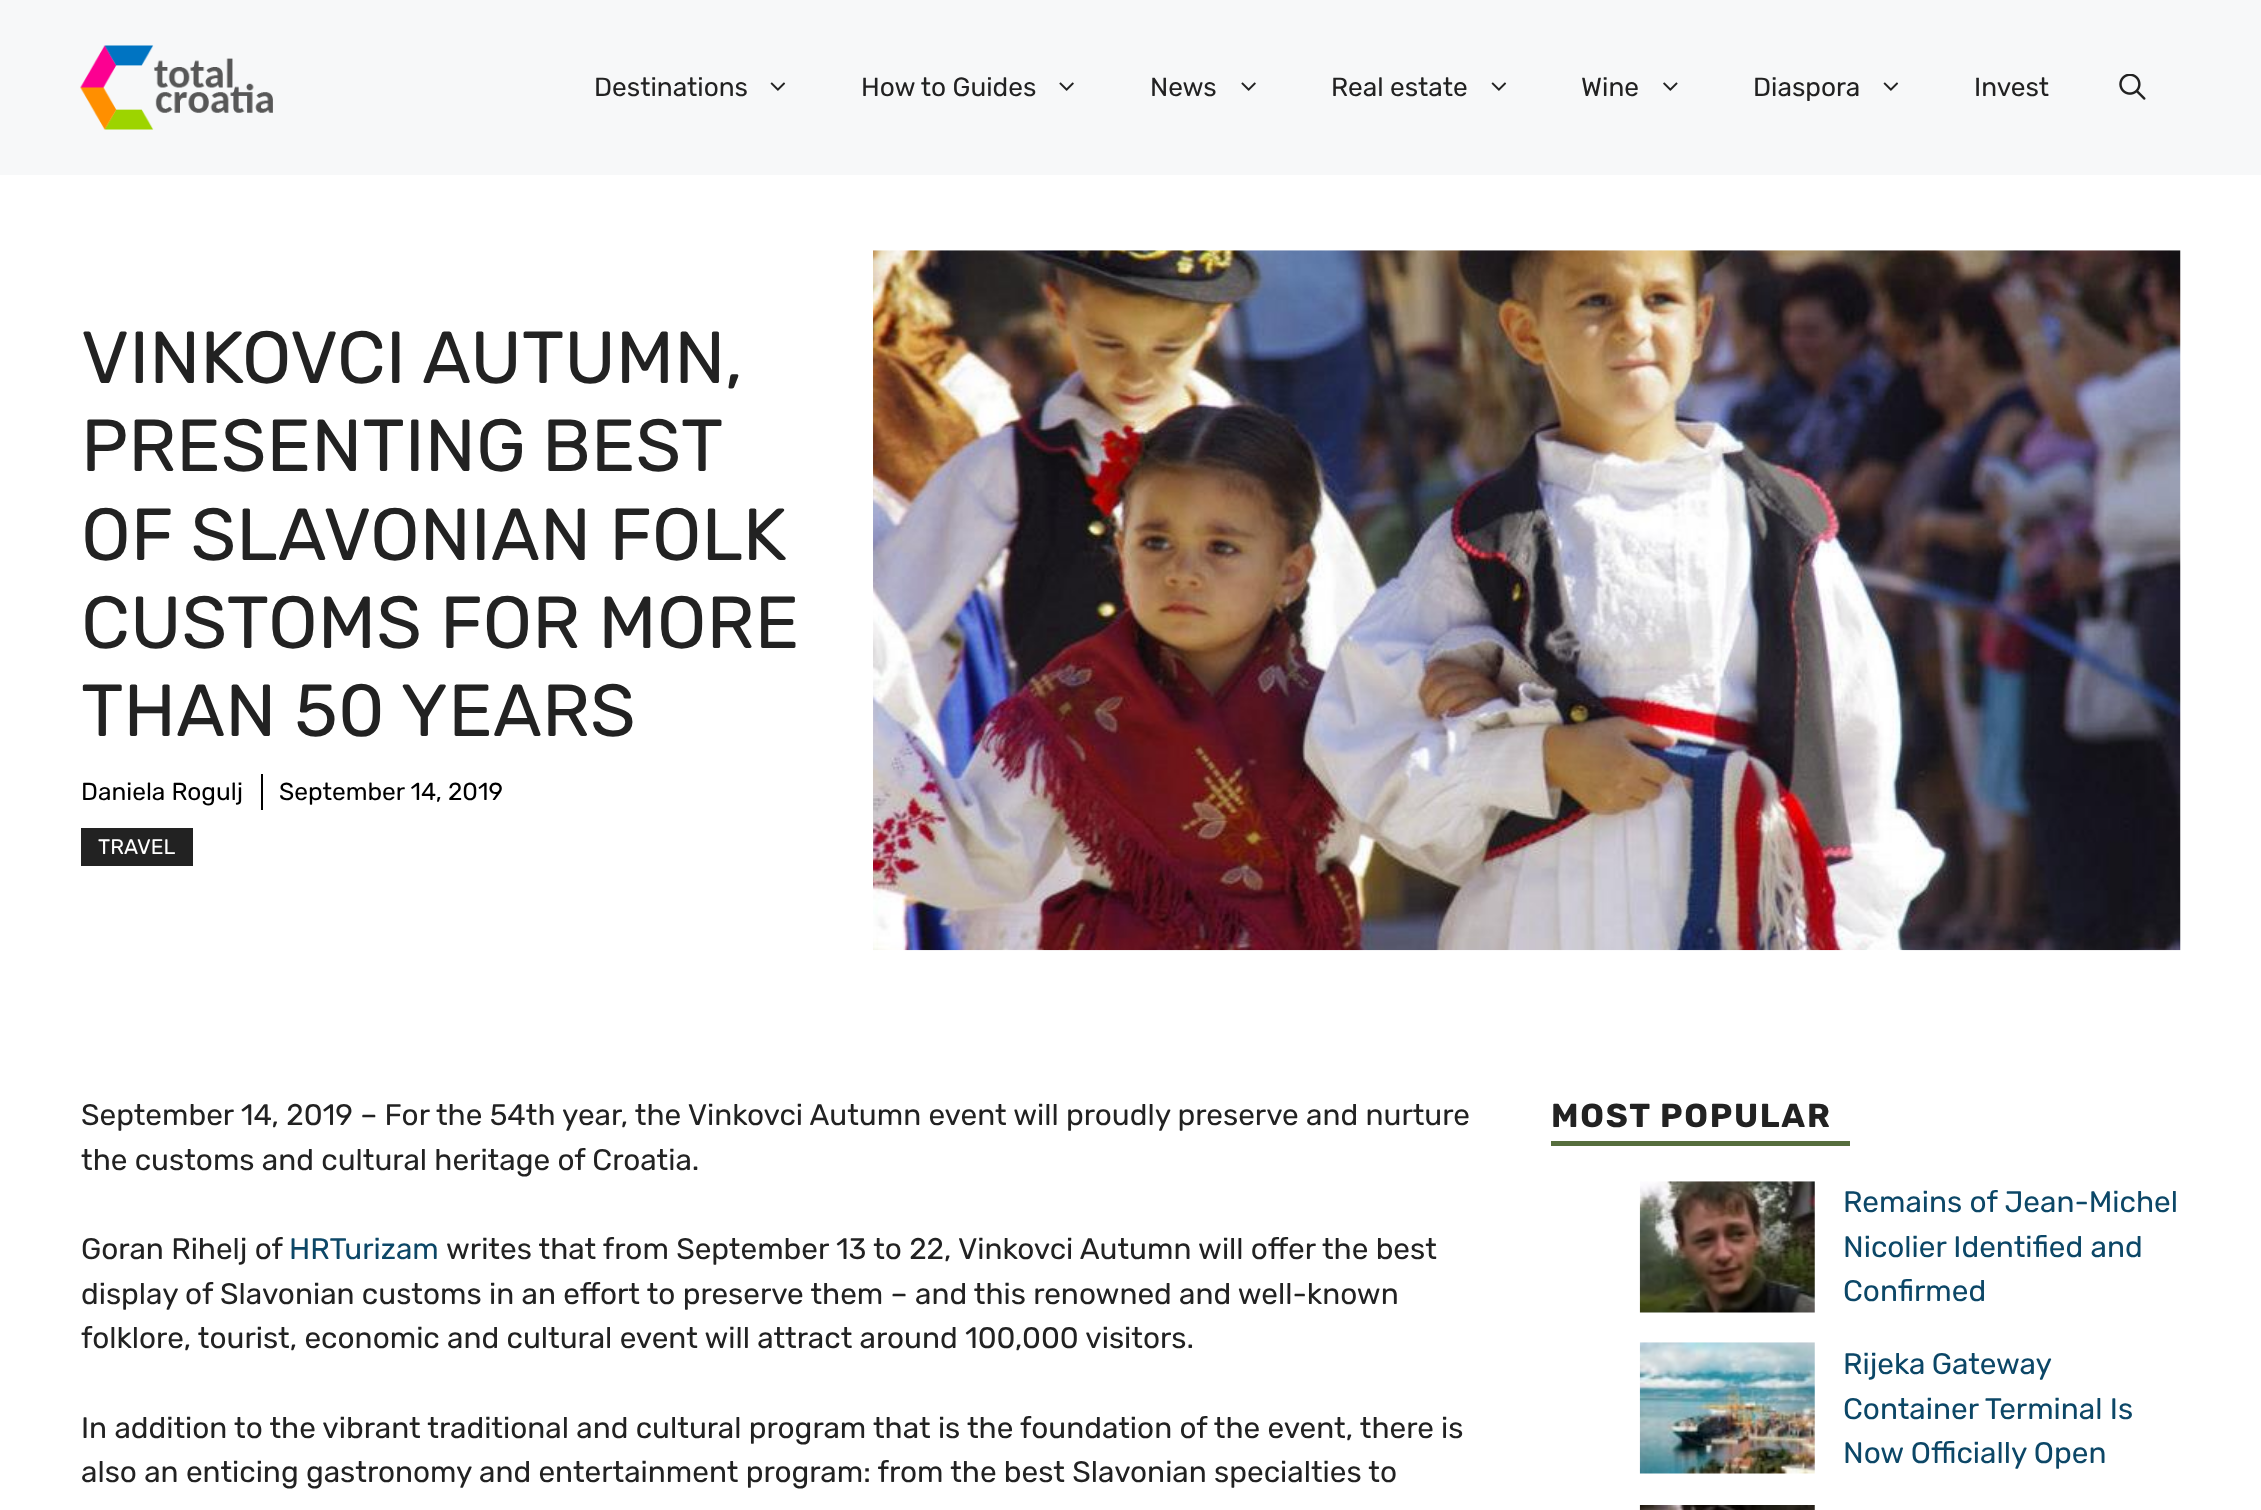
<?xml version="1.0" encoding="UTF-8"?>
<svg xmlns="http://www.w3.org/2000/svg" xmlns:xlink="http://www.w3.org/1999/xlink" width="2261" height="1510">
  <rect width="100%" height="100%" fill="#ffffff" />
  <rect width="2261" height="175" fill="#f7f8f9" />
  <image x="80" y="45" width="193" height="85" xlink:href="image1.png" />
  <image x="770" y="82" width="16" height="9" xlink:href="image2.png" />
  <image x="1059" y="82" width="15" height="9" xlink:href="image3.png" />
  <image x="1241" y="82" width="15" height="9" xlink:href="image3.png" />
  <image x="1491" y="82" width="16" height="9" xlink:href="image2.png" />
  <image x="1663" y="82" width="15" height="9" xlink:href="image4.png" />
  <image x="1883" y="82" width="16" height="9" xlink:href="image2.png" />
  <image x="2119" y="74" width="27" height="26" xlink:href="image5.png" />
  <rect x="261" y="774" width="2" height="36" fill="#000000" />
  <rect x="81" y="828" width="112" height="38" fill="#222222" />
  <image x="873" y="250" width="1308" height="701" xlink:href="image6.png" />
  <rect x="1551" y="1141" width="299" height="5" fill="#566e3d" />
  <image x="1639" y="1181" width="176" height="132" xlink:href="image7.png" />
  <image x="1639" y="1342" width="176" height="132" xlink:href="image8.png" />
  <image x="1639" y="1505" width="176" height="5" xlink:href="image9.png" />
  <text x="594" y="96" style="font-family: Rubik; font-size: 26.25px; fill: #222222">Destinations</text>
  <text x="861" y="96" style="font-family: Rubik; font-size: 26.25px; fill: #222222">How to Guides</text>
  <text x="1150" y="96" style="font-family: Rubik; font-size: 26.25px; fill: #222222">News</text>
  <text x="1331" y="96" style="font-family: Rubik; font-size: 26.25px; fill: #222222">Real estate</text>
  <text x="1581" y="96" style="font-family: Rubik; font-size: 26.25px; fill: #222222">Wine</text>
  <text x="1753" y="96" style="font-family: Rubik; font-size: 26.25px; fill: #222222">Diaspora</text>
  <text x="1974" y="96" style="font-family: Rubik; font-size: 26.25px; fill: #222222">Invest</text>
  <text x="81" y="383" style="font-family: Rubik; font-size: 73.5px; fill: #222222">VINKOVCI AUTUMN,</text>
  <text x="81" y="471" word-spacing="-2" style="font-family: Rubik; font-size: 73.5px; fill: #222222">PRESENTING BEST</text>
  <text x="81" y="560" style="font-family: Rubik; font-size: 73.5px; fill: #222222">OF SLAVONIAN FOLK</text>
  <text x="81" y="648" style="font-family: Rubik; font-size: 73.5px; fill: #222222">CUSTOMS FOR MORE</text>
  <text x="81" y="736" style="font-family: Rubik; font-size: 73.5px; fill: #222222">THAN 50 YEARS</text>
  <text x="81" y="800" style="font-family: Rubik; font-size: 24.5px; fill: #000000">Daniela Rogulj</text>
  <text x="279" y="800" style="font-family: Rubik; font-size: 24.5px; fill: #000000">September 14, 2019</text>
  <text x="98" y="854" style="font-family: Rubik; font-size: 21px; fill: #ffffff">TRAVEL</text>
  <text x="81" y="1125" style="font-family: Rubik; font-size: 29.75px; fill: #222222">September 14, 2019 – For the 54th year, the Vinkovci Autumn event will proudly preserve and nurture</text>
  <text x="81" y="1170" style="font-family: Rubik; font-size: 29.75px; fill: #222222">the customs and cultural heritage of Croatia.</text>
  <text x="81" y="1259" style="font-family: Rubik; font-size: 29.75px; fill: #222222">Goran Rihelj of</text>
  <text x="289" y="1259" style="font-family: Rubik; font-size: 29.75px; fill: #0c4767">HRTurizam</text>
  <text x="446" y="1259" style="font-family: Rubik; font-size: 29.75px; fill: #222222">writes that from September 13 to 22, Vinkovci Autumn will offer the best</text>
  <text x="81" y="1304" style="font-family: Rubik; font-size: 29.75px; fill: #222222">display of Slavonian customs in an effort to preserve them – and this renowned and well-known</text>
  <text x="81" y="1348" style="font-family: Rubik; font-size: 29.75px; fill: #222222">folklore, tourist, economic and cultural event will attract around 100,000 visitors.</text>
  <text x="81" y="1438" style="font-family: Rubik; font-size: 29.75px; fill: #222222">In addition to the vibrant traditional and cultural program that is the foundation of the event, there is</text>
  <text x="81" y="1482" style="font-family: Rubik; font-size: 29.75px; fill: #222222">also an enticing gastronomy and entertainment program: from the best Slavonian specialties to</text>
  <text x="1551" y="1127" style="font-family: Rubik; font-size: 33.25px; font-weight: bold; letter-spacing: 1.75px; fill: #222222">MOST POPULAR</text>
  <text x="1843" y="1212" style="font-family: Rubik; font-size: 29.75px; fill: #0c4767">Remains of Jean-Michel</text>
  <text x="1843" y="1257" style="font-family: Rubik; font-size: 29.75px; fill: #0c4767">Nicolier Identified and</text>
  <text x="1843" y="1301" style="font-family: Rubik; font-size: 29.75px; fill: #0c4767">Confirmed</text>
  <text x="1843" y="1374" word-spacing="-1" style="font-family: Rubik; font-size: 29.75px; fill: #0c4767">Rijeka Gateway</text>
  <text x="1843" y="1419" style="font-family: Rubik; font-size: 29.75px; fill: #0c4767">Container Terminal Is</text>
  <text x="1843" y="1463" style="font-family: Rubik; font-size: 29.75px; fill: #0c4767">Now Officially Open</text>
</svg>
